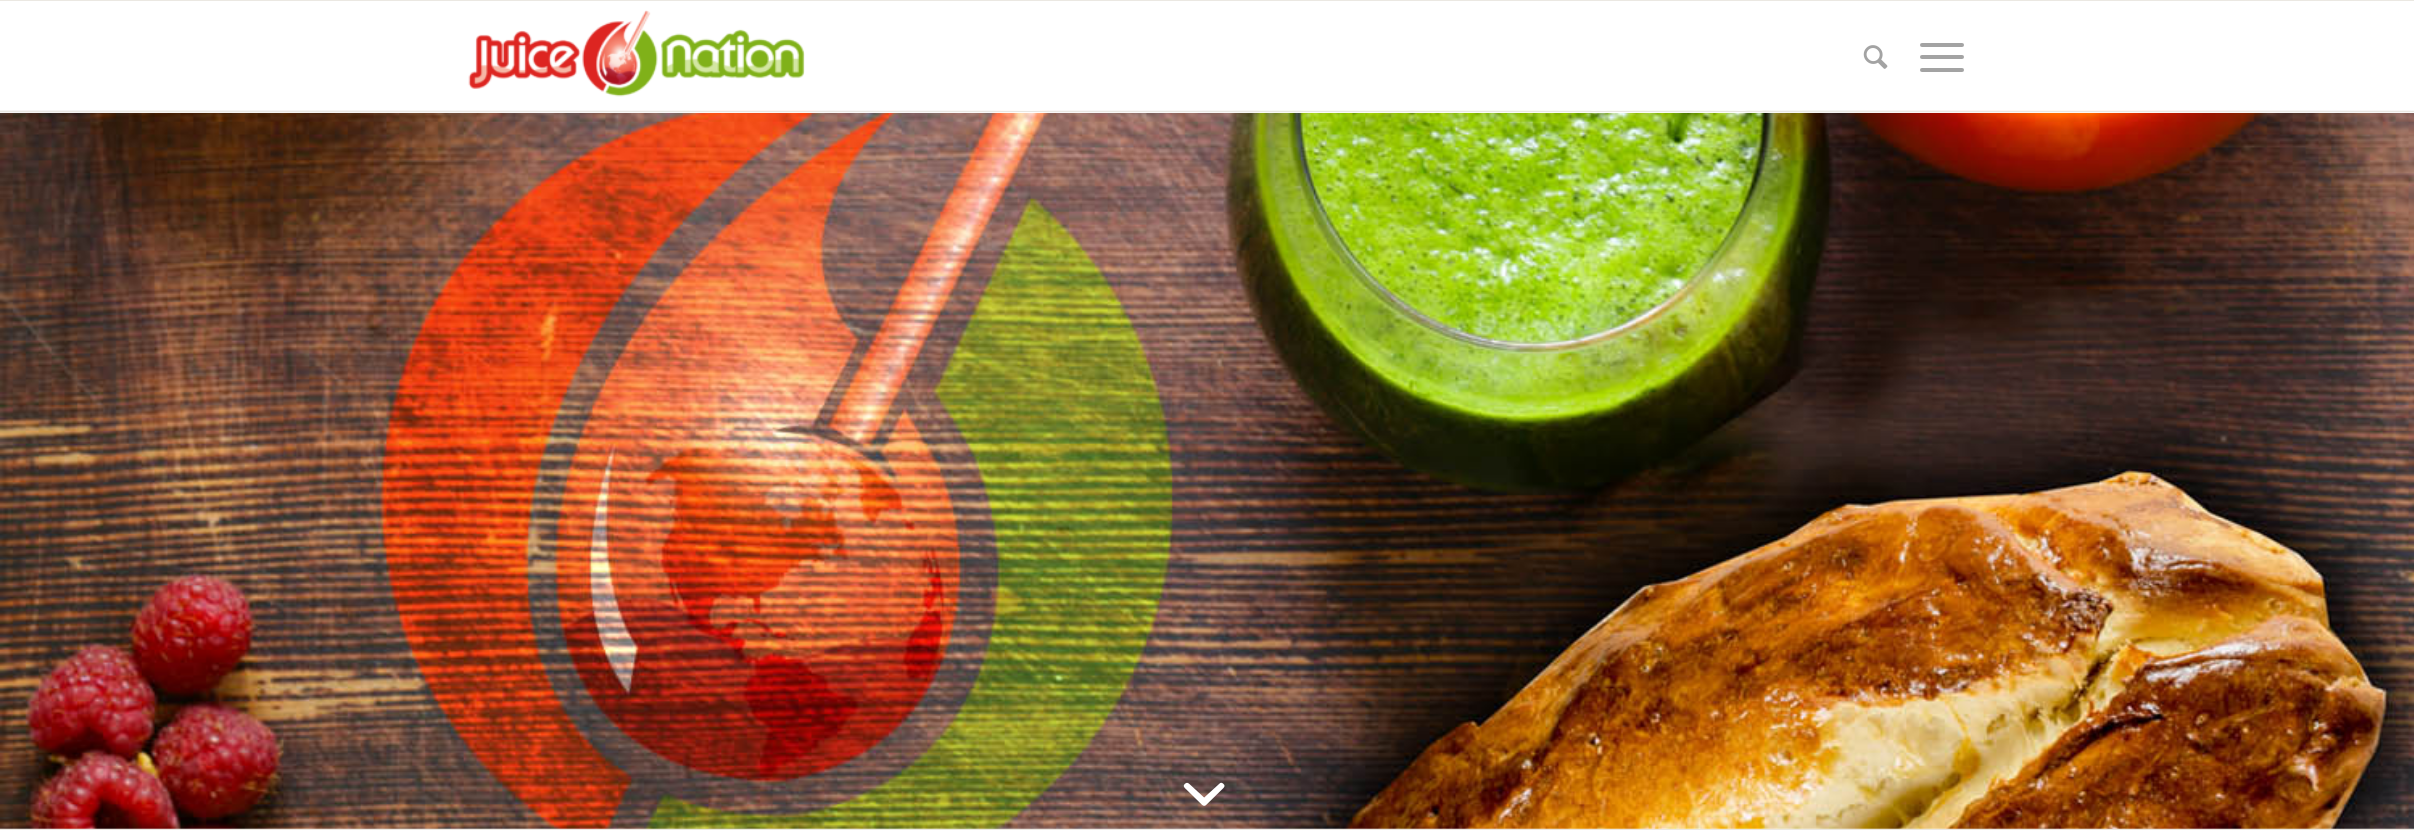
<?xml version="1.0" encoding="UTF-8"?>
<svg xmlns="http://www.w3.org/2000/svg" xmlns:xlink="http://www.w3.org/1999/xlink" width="2414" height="830">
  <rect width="100%" height="100%" fill="#ffffff" />
  <rect width="2414" height="1" fill="#ebe8e2" />
  <image x="0" y="110" width="2414" height="719" xlink:href="image3.png" />
  <rect y="110" width="2414" height="3" fill="#ffffff" fill-opacity="0.95" />
  <rect y="111" width="2414" height="1" fill="#ebe8e2" />
  <image x="468" y="10" width="337" height="87" xlink:href="image1.png" />
  <image x="1863" y="45" width="25" height="24" xlink:href="image2.png" />
  <rect x="1920" y="55" width="44" height="4" rx="2" fill="#a3a3a3" />
  <rect x="1920" y="43" width="44" height="4" rx="2" fill="#a3a3a3" />
  <rect x="1920" y="68" width="44" height="4" rx="2" fill="#a3a3a3" />
  <image x="1183" y="782" width="42" height="24" xlink:href="image4.png" />
  <rect y="829" width="2414" height="1" fill="#ebe8e2" />
</svg>
